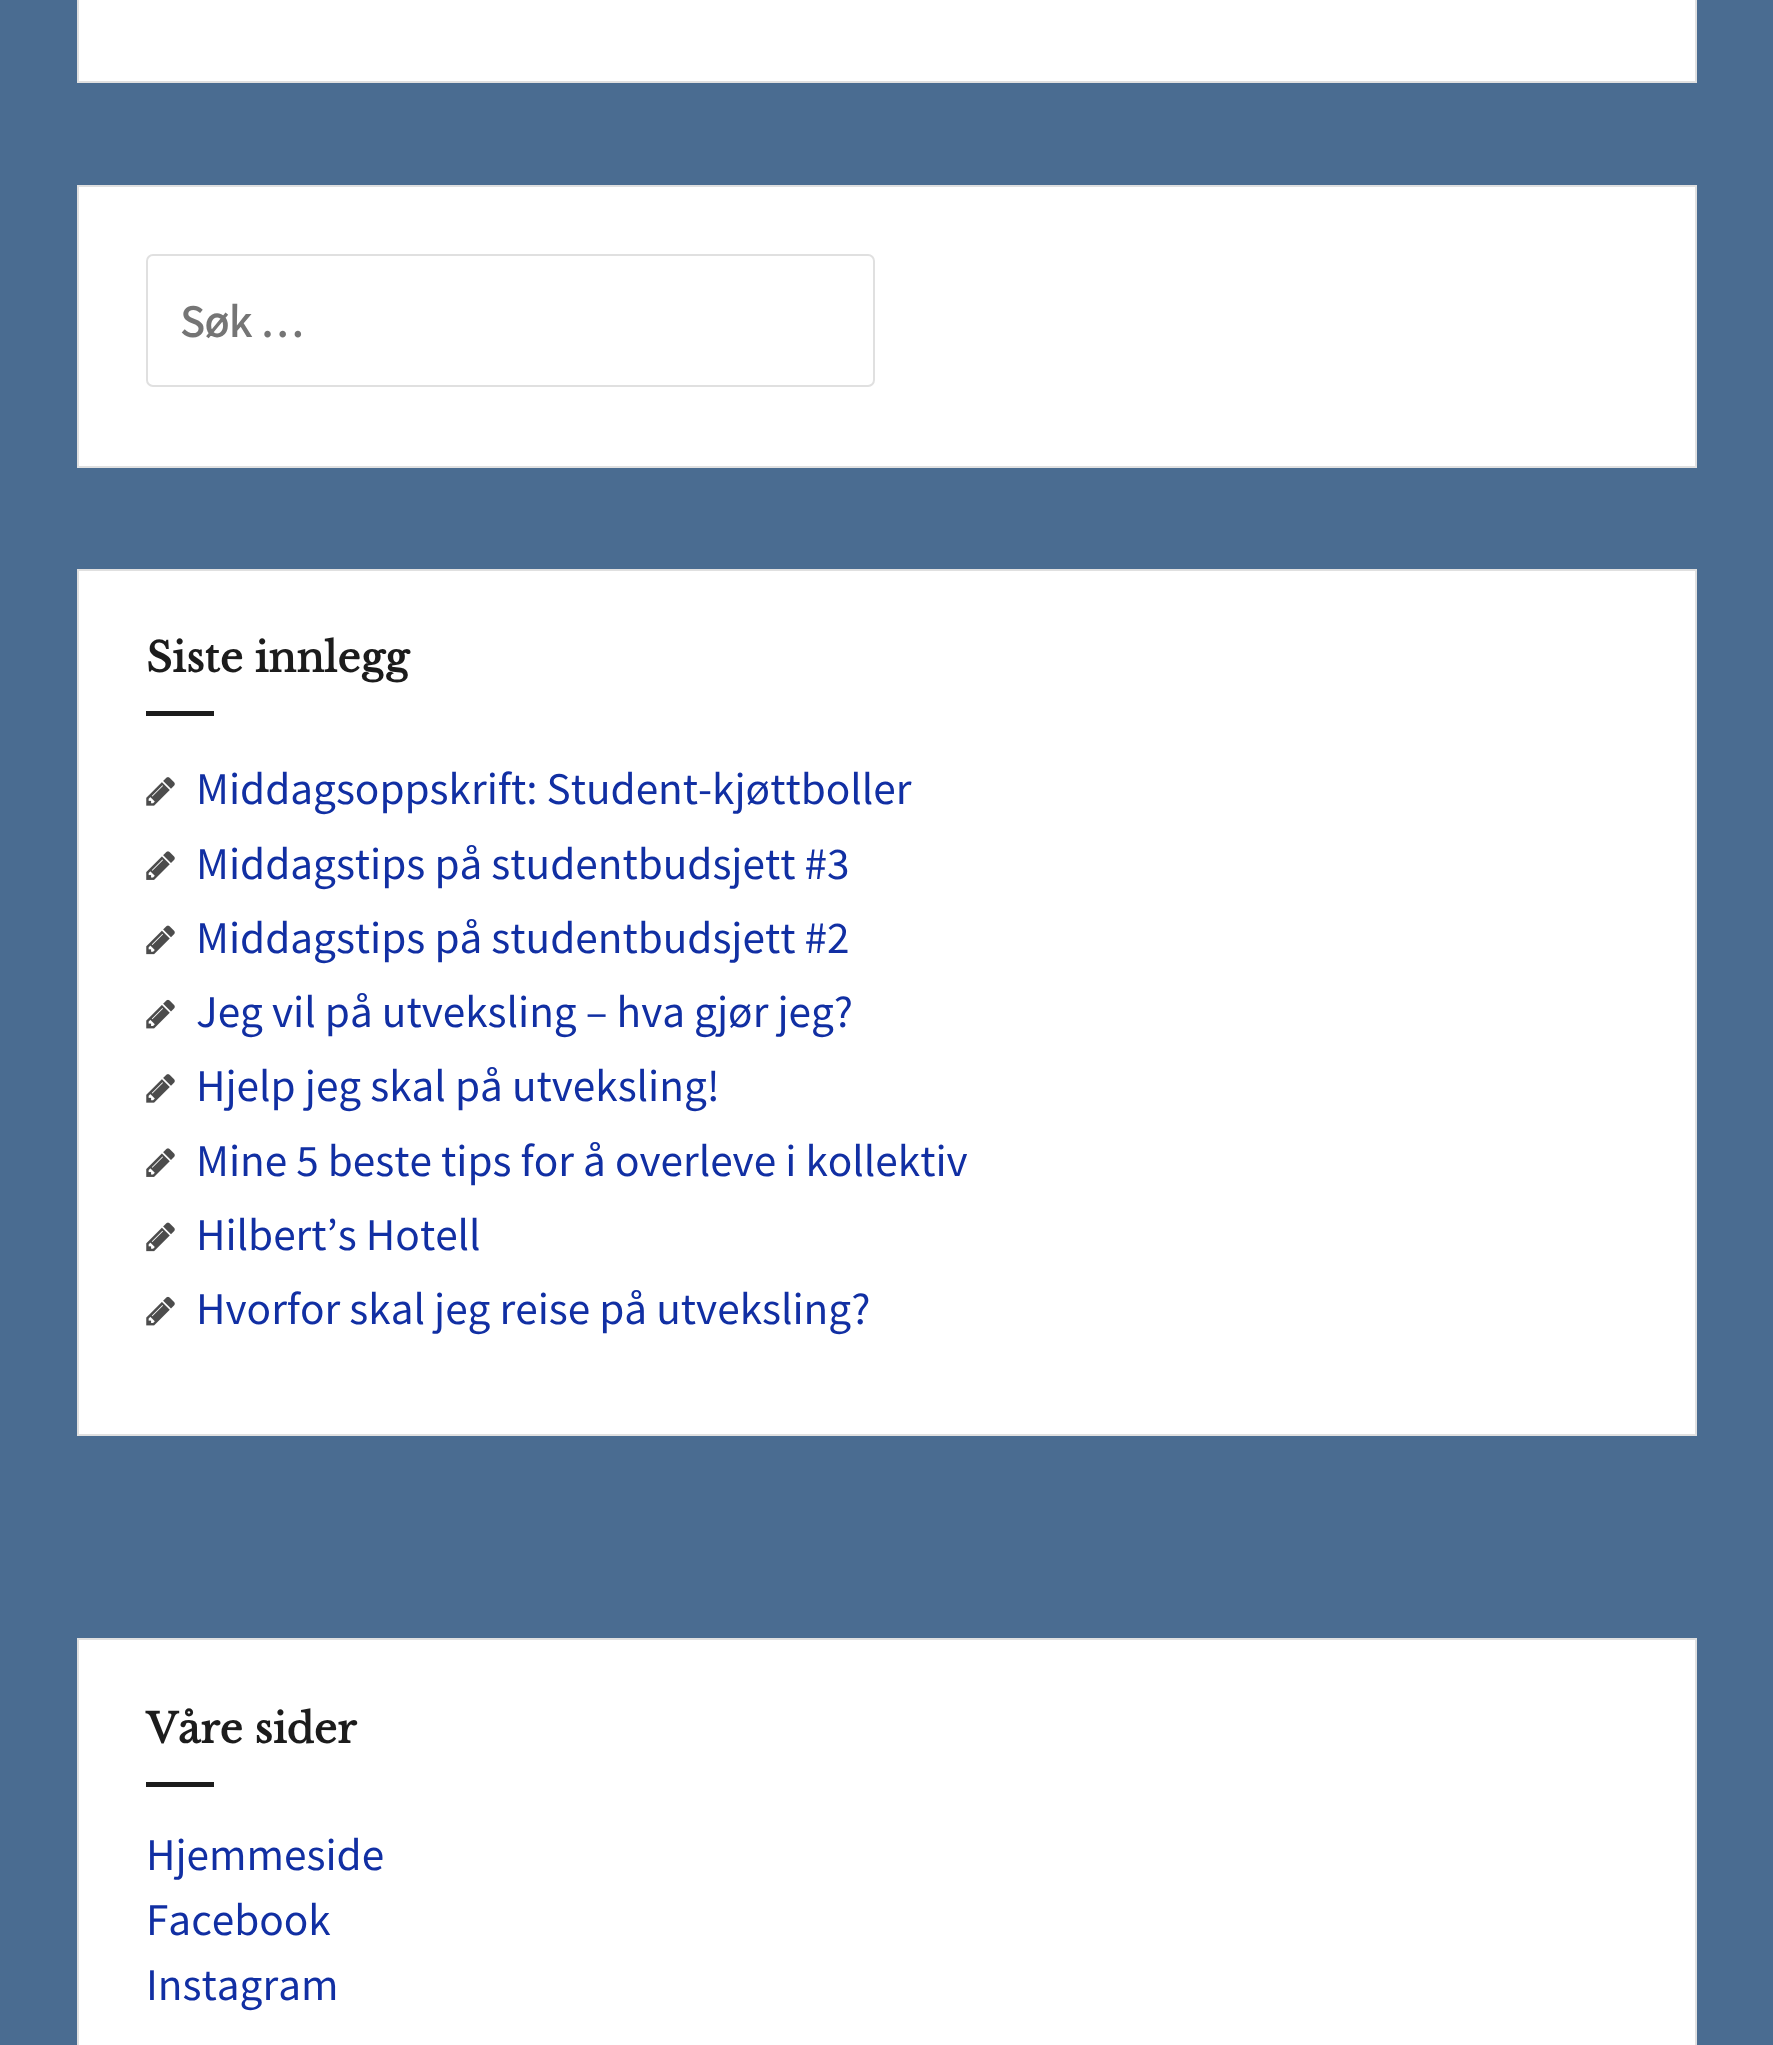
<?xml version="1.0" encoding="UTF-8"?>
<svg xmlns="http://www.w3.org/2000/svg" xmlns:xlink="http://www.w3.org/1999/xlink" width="1773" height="2045">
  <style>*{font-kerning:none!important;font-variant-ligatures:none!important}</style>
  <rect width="100%" height="100%" fill="#4a6c91" />
  <rect x="78" y="-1" width="1618" height="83" fill="#ffffff" stroke="#e0e0e0" stroke-width="2" />
  <rect x="78" y="186" width="1618" height="281" fill="#ffffff" stroke="#e0e0e0" stroke-width="2" />
  <rect x="147" y="255" width="727" height="131" rx="6" fill="none" stroke="#e0e0e0" stroke-width="2" />
  <rect x="78" y="570" width="1618" height="865" fill="#ffffff" stroke="#e0e0e0" stroke-width="2" />
  <rect x="146" y="711" width="68" height="5" fill="#1c1c1c" />
  <image x="146" y="777" width="29" height="29" xlink:href="image1.png" />
  <image x="146" y="851" width="29" height="29" xlink:href="image2.png" />
  <image x="146" y="925" width="29" height="30" xlink:href="image3.png" />
  <image x="146" y="999" width="29" height="30" xlink:href="image4.png" />
  <image x="146" y="1074" width="29" height="29" xlink:href="image1.png" />
  <image x="146" y="1148" width="29" height="29" xlink:href="image2.png" />
  <image x="146" y="1222" width="29" height="30" xlink:href="image3.png" />
  <image x="146" y="1296" width="29" height="30" xlink:href="image4.png" />
  <rect x="78" y="1639" width="1618" height="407" fill="#ffffff" stroke="#e0e0e0" stroke-width="2" />
  <rect x="146" y="1782" width="68" height="5" fill="#1c1c1c" />
  <text x="180" y="337" style="font-family: Noto Sans JP; font-size: 40.5px; font-weight: bold; fill: #757575">Søk …</text>
  <text x="146" y="672" style="font-family: Libre Baskerville; font-size: 40.5px; font-weight: bold; fill: #1c1c1c">Siste innlegg</text>
  <text x="196" y="804" style="font-family: Noto Sans JP; font-size: 40.5px; font-weight: 100; fill: #112fa3">Middagsoppskrift: Student-kjøttboller</text>
  <text x="196" y="879" style="font-family: Noto Sans JP; font-size: 40.5px; font-weight: 100; fill: #112fa3">Middagstips på studentbudsjett #3</text>
  <text x="196" y="953" style="font-family: Noto Sans JP; font-size: 40.5px; font-weight: 100; fill: #112fa3">Middagstips på studentbudsjett #2</text>
  <text x="196" y="1027" style="font-family: Noto Sans JP; font-size: 40.5px; font-weight: 100; fill: #112fa3">Jeg vil på utveksling – hva gjør jeg?</text>
  <text x="196" y="1101" style="font-family: Noto Sans JP; font-size: 40.5px; font-weight: 100; fill: #112fa3">Hjelp jeg skal på utveksling!</text>
  <text x="196" y="1176" style="font-family: Noto Sans JP; font-size: 40.5px; font-weight: 100; fill: #112fa3">Mine 5 beste tips for å overleve i kollektiv</text>
  <text x="196" y="1250" style="font-family: Noto Sans JP; font-size: 40.5px; font-weight: 100; fill: #112fa3">Hilbert’s Hotell</text>
  <text x="196" y="1324" style="font-family: Noto Sans JP; font-size: 40.5px; font-weight: 100; fill: #112fa3">Hvorfor skal jeg reise på utveksling?</text>
  <text x="146" y="1743" style="font-family: Libre Baskerville; font-size: 40.5px; font-weight: bold; fill: #1c1c1c">Våre sider</text>
  <text x="146" y="1870" style="font-family: Noto Sans JP; font-size: 40.5px; font-weight: 100; fill: #112fa3">Hjemmeside</text>
  <text x="146" y="1935" style="font-family: Noto Sans JP; font-size: 40.5px; font-weight: 100; fill: #112fa3">Facebook</text>
  <text x="146" y="2000" style="font-family: Noto Sans JP; font-size: 40.5px; font-weight: 100; fill: #112fa3">Instagram</text>
</svg>
